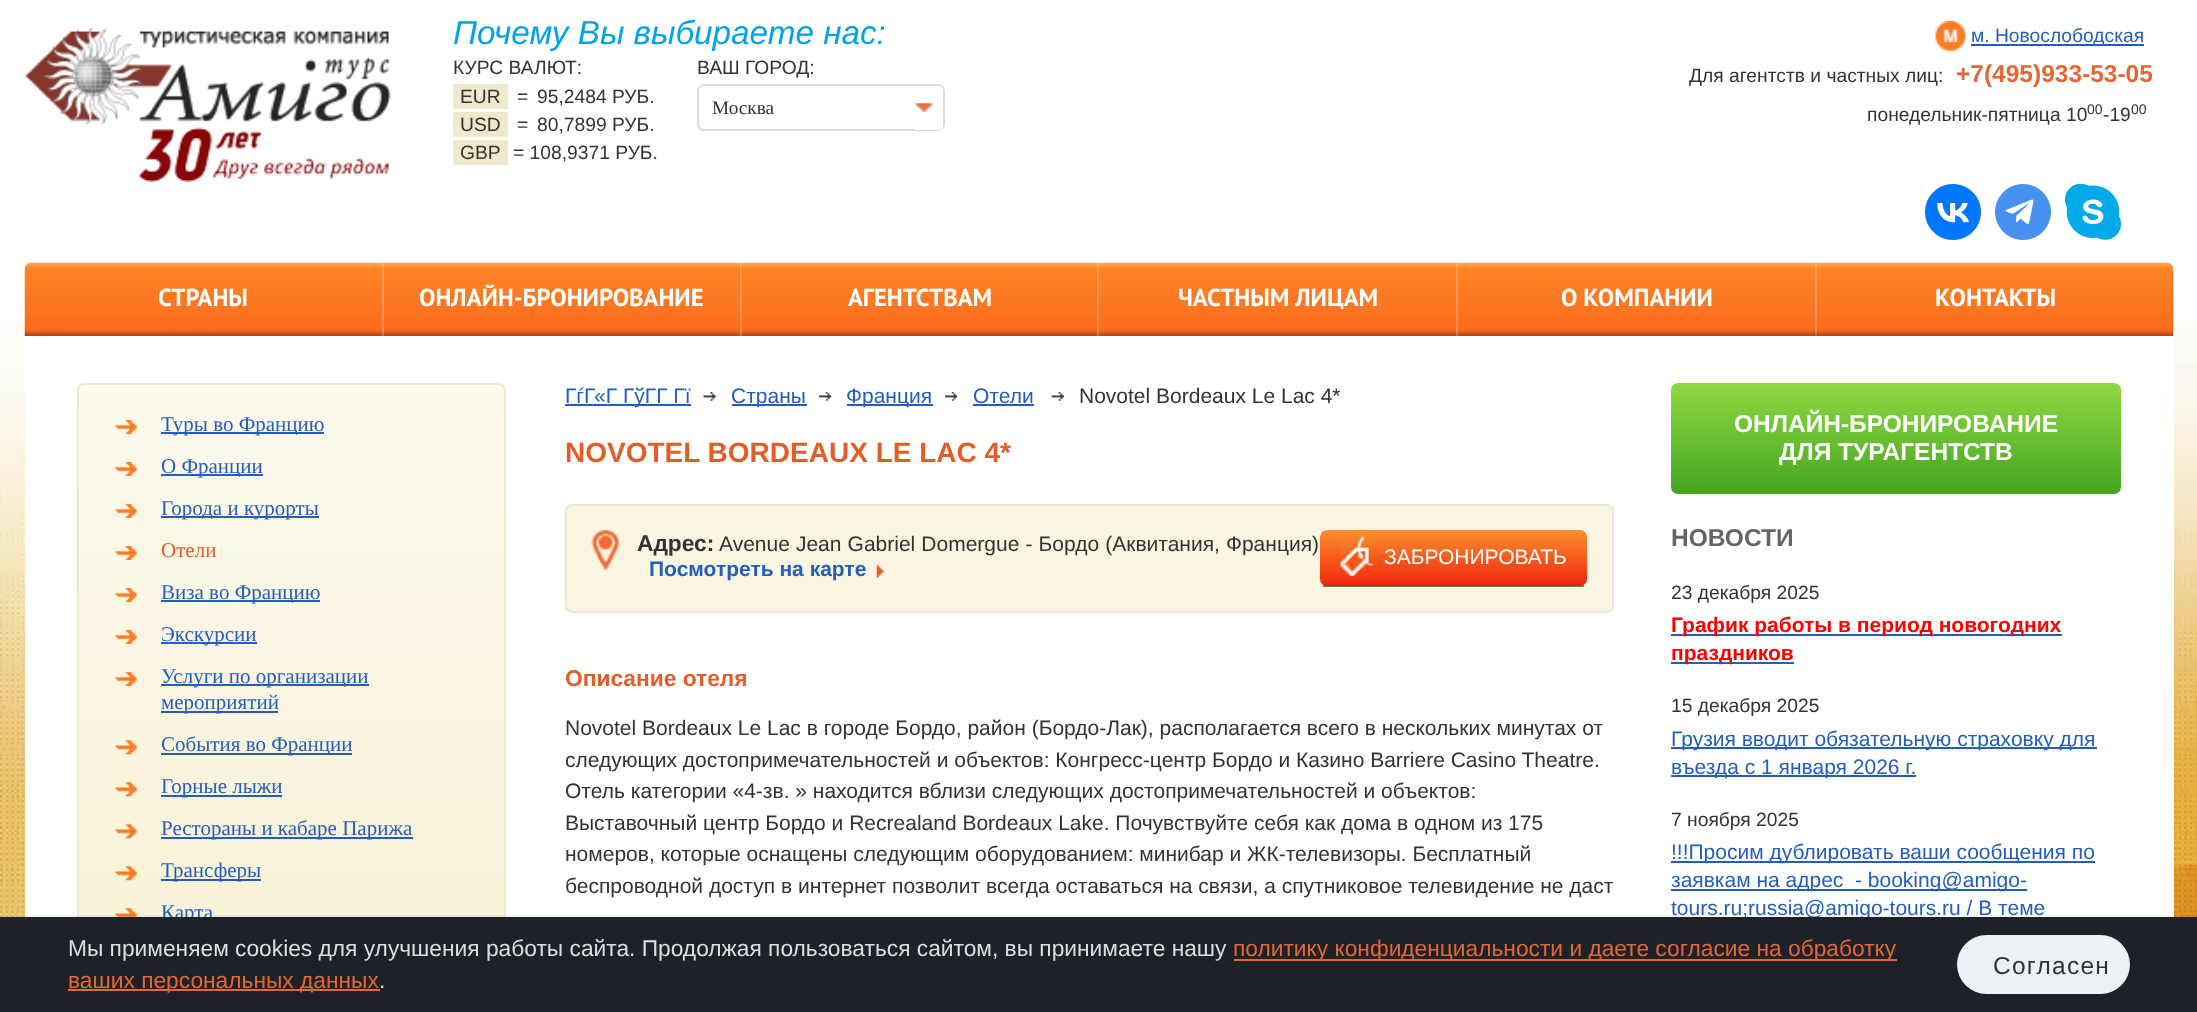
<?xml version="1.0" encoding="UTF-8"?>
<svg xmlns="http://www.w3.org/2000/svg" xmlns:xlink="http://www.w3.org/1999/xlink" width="2197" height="1012">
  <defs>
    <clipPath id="clip1"><rect x="77" y="383" width="429" height="620" rx="7" /></clipPath>
    <linearGradient id="g1" gradientUnits="userSpaceOnUse" x1="291" y1="385" x2="291" y2="1001"><stop offset="0" stop-color="#fcf9ed" /><stop offset="1" stop-color="#f8f1d5" /></linearGradient>
    <clipPath id="clip2"><rect x="1320" y="530" width="267" height="56" rx="7" /></clipPath>
    <linearGradient id="g2" gradientUnits="userSpaceOnUse" x1="1453" y1="530" x2="1453" y2="585"><stop offset="0" stop-color="#fb8f2e" /><stop offset="1" stop-color="#ef280d" /></linearGradient>
    <linearGradient id="g3" gradientUnits="userSpaceOnUse" x1="1453" y1="585" x2="1453" y2="639"><stop offset="0" stop-color="#fb8f2e" /><stop offset="1" stop-color="#ef280d" /></linearGradient>
    <linearGradient id="g4" gradientUnits="userSpaceOnUse" x1="1896" y1="383" x2="1896" y2="494"><stop offset="0" stop-color="#90d943" /><stop offset="1" stop-color="#44a51f" /></linearGradient>
  </defs>
  <rect width="100%" height="100%" fill="#ffffff" />
  <image x="0" y="321" width="2197" height="596" xlink:href="image1.png" />
  <rect x="25" y="25" width="2149" height="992" rx="5" fill="#ffffff" />
  <image x="24" y="26" width="367" height="156" xlink:href="image2.png" />
  <rect x="453" y="84" width="55" height="25" fill="#f0e8ca" />
  <rect x="453" y="112" width="55" height="25" fill="#f0e8ca" />
  <rect x="453" y="140" width="55" height="25" fill="#f0e8ca" />
  <rect x="698" y="85" width="246" height="45" rx="6" fill="none" stroke="#dbdbdb" stroke-width="2" />
  <path d="M 915 86 h 23 c 3 0 5 2 5 5 v 34 c 0 3 -2 5 -5 5 h -23 z" fill="#ffffff" />
  <image x="915" y="103" width="18" height="9" xlink:href="image3.png" />
  <image x="1935" y="21" width="31" height="30" xlink:href="image4.png" />
  <rect x="1971" y="44" width="173" height="2" fill="#235ebe" />
  <image x="1925" y="184" width="56" height="56" xlink:href="image5.png" />
  <image x="1995" y="184" width="56" height="56" xlink:href="image6.png" />
  <image x="2065" y="184" width="56" height="56" xlink:href="image7.png" />
  <image x="24" y="262" width="2150" height="74" xlink:href="image8.png" />
  <rect x="382" y="263" width="2" height="73" fill="#ffffff" fill-opacity="0.21" />
  <rect x="740" y="263" width="2" height="73" fill="#ffffff" fill-opacity="0.21" />
  <rect x="1097" y="263" width="2" height="73" fill="#ffffff" fill-opacity="0.21" />
  <rect x="1456" y="263" width="2" height="73" fill="#ffffff" fill-opacity="0.21" />
  <rect x="1815" y="263" width="2" height="73" fill="#ffffff" fill-opacity="0.21" />
  <g clip-path="url(#clip1)">
    <rect x="77" y="385" width="429" height="532" fill="url(#g1)" />
  </g>
  <rect x="78" y="384" width="427" height="618" rx="6" fill="none" stroke="#ece9d2" stroke-width="2" />
  <image x="115" y="420" width="24" height="14" xlink:href="image9.png" />
  <rect x="161" y="432" width="163" height="2" fill="#235ebe" />
  <image x="115" y="462" width="24" height="14" xlink:href="image10.png" />
  <rect x="161" y="474" width="102" height="2" fill="#235ebe" />
  <image x="115" y="504" width="24" height="14" xlink:href="image11.png" />
  <rect x="161" y="516" width="158" height="2" fill="#235ebe" />
  <image x="115" y="546" width="24" height="14" xlink:href="image12.png" />
  <image x="115" y="588" width="24" height="14" xlink:href="image13.png" />
  <rect x="161" y="600" width="159" height="2" fill="#235ebe" />
  <image x="115" y="630" width="24" height="14" xlink:href="image14.png" />
  <rect x="161" y="642" width="96" height="2" fill="#235ebe" />
  <image x="115" y="672" width="24" height="14" xlink:href="image15.png" />
  <rect x="161" y="684" width="208" height="2" fill="#235ebe" />
  <rect x="161" y="711" width="117" height="2" fill="#235ebe" />
  <image x="115" y="740" width="24" height="15" xlink:href="image16.png" />
  <rect x="161" y="753" width="191" height="2" fill="#235ebe" />
  <image x="115" y="782" width="24" height="15" xlink:href="image17.png" />
  <rect x="161" y="795" width="121" height="2" fill="#235ebe" />
  <image x="115" y="824" width="24" height="15" xlink:href="image18.png" />
  <rect x="161" y="837" width="252" height="2" fill="#235ebe" />
  <image x="115" y="866" width="24" height="15" xlink:href="image19.png" />
  <rect x="161" y="879" width="100" height="2" fill="#235ebe" />
  <image x="115" y="908" width="24" height="9" xlink:href="image20.png" />
  <rect x="565" y="404" width="126" height="2" fill="#235ebe" />
  <image x="703" y="392" width="13" height="9" xlink:href="image21.png" />
  <rect x="732" y="404" width="75" height="2" fill="#235ebe" />
  <image x="819" y="392" width="13" height="9" xlink:href="image22.png" />
  <rect x="847" y="404" width="86" height="2" fill="#235ebe" />
  <image x="945" y="392" width="13" height="9" xlink:href="image22.png" />
  <rect x="973" y="404" width="61" height="2" fill="#235ebe" />
  <image x="1051" y="392" width="13" height="9" xlink:href="image23.png" />
  <rect x="566" y="505" width="1047" height="107" rx="6" fill="#faf5e1" stroke="#ece9d2" stroke-width="2" />
  <image x="591" y="530" width="29" height="41" xlink:href="image24.png" />
  <image x="876" y="565" width="9" height="13" xlink:href="image25.png" />
  <g clip-path="url(#clip2)">
    <path d="M 1327 530 h 253 c 4 0 7 3 7 7 v 48 h -267 v -48 c 0 -4 3 -7 7 -7 z" fill="url(#g2)" />
    <rect x="1320" y="585" width="267" height="1" fill="url(#g3)" />
  </g>
  <rect x="1323" y="585" width="261" height="2" fill="#000000" fill-opacity="0.5" />
  <image x="1340" y="535" width="34" height="41" xlink:href="image26.png" />
  <rect x="1671" y="383" width="450" height="111" rx="7" fill="url(#g4)" />
  <rect x="1671" y="634" width="391" height="2" fill="#235ebe" />
  <rect x="1671" y="662" width="123" height="2" fill="#235ebe" />
  <rect x="1671" y="747" width="426" height="2" fill="#235ebe" />
  <rect x="1671" y="775" width="245" height="2" fill="#235ebe" />
  <rect x="1671" y="861" width="424" height="2" fill="#235ebe" />
  <rect x="1671" y="889" width="356" height="2" fill="#235ebe" />
  <rect y="915" width="2197" height="2" fill="#212735" fill-opacity="0.05" />
  <text x="453" y="44" style="font-family: Liberation Sans; font-size: 33.25px; font-style: italic; fill: #00a2e8">Почему Вы выбираете нас:</text>
  <text x="453" y="74" style="font-family: Liberation Sans; font-size: 19.25px; fill: #333333">КУРС ВАЛЮТ:</text>
  <text x="460" y="103" style="font-family: Liberation Sans; font-size: 19.25px; fill: #333333">EUR</text>
  <text x="517" y="103" style="font-family: Liberation Sans; font-size: 19.25px; fill: #333333">=</text>
  <text x="537" y="103" style="font-family: Liberation Sans; font-size: 19.25px; fill: #333333">95,2484 РУБ.</text>
  <text x="460" y="131" style="font-family: Liberation Sans; font-size: 19.25px; fill: #333333">USD</text>
  <text x="517" y="131" style="font-family: Liberation Sans; font-size: 19.25px; fill: #333333">=</text>
  <text x="537" y="131" style="font-family: Liberation Sans; font-size: 19.25px; fill: #333333">80,7899 РУБ.</text>
  <text x="460" y="159" style="font-family: Liberation Sans; font-size: 19.25px; fill: #333333">GBP</text>
  <text x="513" y="159" style="font-family: Liberation Sans; font-size: 19.25px; fill: #333333">= 108,9371 РУБ.</text>
  <text x="697" y="74" style="font-family: Liberation Sans; font-size: 19.25px; fill: #333333">ВАШ ГОРОД:</text>
  <text x="712" y="114" style="font-family: Liberation Serif; font-size: 19.25px; fill: #333333">Москва</text>
  <text x="1971" y="42" style="font-family: Liberation Sans; font-size: 19.25px; fill: #235ebe">м. Новослободская</text>
  <text x="1689" y="82" style="font-family: Liberation Sans; font-size: 19.25px; fill: #333333">Для агентств и частных лиц:</text>
  <text x="1956" y="82" style="font-family: Liberation Sans; font-size: 24.5px; font-weight: bold; fill: #e36835">+7(495)933-53-05</text>
  <text x="1867" y="121" style="font-family: Liberation Sans; font-size: 19.25px; fill: #333333">понедельник-пятница 10</text>
  <text x="2087" y="114" style="font-family: Liberation Sans; font-size: 14px; fill: #333333">00</text>
  <text x="2103" y="121" style="font-family: Liberation Sans; font-size: 19.25px; fill: #333333">-19</text>
  <text x="2131" y="114" style="font-family: Liberation Sans; font-size: 14px; fill: #333333">00</text>
  <text x="158" y="306" style="font-family: PT Sans; font-size: 24.5px; font-weight: bold; fill: #ffffff">СТРАНЫ</text>
  <text x="419" y="306" style="font-family: PT Sans; font-size: 24.5px; font-weight: bold; fill: #ffffff">ОНЛАЙН-БРОНИРОВАНИЕ</text>
  <text x="848" y="306" style="font-family: PT Sans; font-size: 24.5px; font-weight: bold; fill: #ffffff">АГЕНТСТВАМ</text>
  <text x="1178" y="306" style="font-family: PT Sans; font-size: 24.5px; font-weight: bold; fill: #ffffff">ЧАСТНЫМ ЛИЦАМ</text>
  <text x="1561" y="306" style="font-family: PT Sans; font-size: 24.5px; font-weight: bold; fill: #ffffff">О КОМПАНИИ</text>
  <text x="1935" y="306" style="font-family: PT Sans; font-size: 24.5px; font-weight: bold; fill: #ffffff">КОНТАКТЫ</text>
  <text x="161" y="431" style="font-family: Liberation Serif; font-size: 21px; fill: #235ebe">Туры во Францию</text>
  <text x="161" y="473" style="font-family: Liberation Serif; font-size: 21px; fill: #235ebe">О Франции</text>
  <text x="161" y="515" style="font-family: Liberation Serif; font-size: 21px; fill: #235ebe">Города и курорты</text>
  <text x="161" y="557" style="font-family: Liberation Serif; font-size: 21px; fill: #e25d27">Отели</text>
  <text x="161" y="599" style="font-family: Liberation Serif; font-size: 21px; fill: #235ebe">Виза во Францию</text>
  <text x="161" y="641" style="font-family: Liberation Serif; font-size: 21px; fill: #235ebe">Экскурсии</text>
  <text x="161" y="683" style="font-family: Liberation Serif; font-size: 21px; fill: #235ebe">Услуги по организации</text>
  <text x="161" y="709" style="font-family: Liberation Serif; font-size: 21px; fill: #235ebe">мероприятий</text>
  <text x="161" y="751" style="font-family: Liberation Serif; font-size: 21px; fill: #235ebe">События во Франции</text>
  <text x="161" y="793" style="font-family: Liberation Serif; font-size: 21px; fill: #235ebe">Горные лыжи</text>
  <text x="161" y="835" style="font-family: Liberation Serif; font-size: 21px; fill: #235ebe">Рестораны и кабаре Парижа</text>
  <text x="161" y="877" style="font-family: Liberation Serif; font-size: 21px; fill: #235ebe">Трансферы</text>
  <text x="161" y="919" style="font-family: Liberation Serif; font-size: 21px; fill: #235ebe">Карта</text>
  <text x="565" y="403" style="font-family: Liberation Sans; font-size: 21px; fill: #235ebe">ГѓГ«Г ГўГГ Гї</text>
  <text x="731" y="403" style="font-family: Liberation Sans; font-size: 21px; fill: #235ebe">Страны</text>
  <text x="846" y="403" style="font-family: Liberation Sans; font-size: 21px; fill: #235ebe">Франция</text>
  <text x="973" y="403" style="font-family: Liberation Sans; font-size: 21px; fill: #235ebe">Отели</text>
  <text x="1079" y="403" style="font-family: Liberation Sans; font-size: 21px; fill: #333333">Novotel Bordeaux Le Lac 4*</text>
  <text x="565" y="462" style="font-family: Liberation Sans; font-size: 28px; font-weight: bold; fill: #e25d27">NOVOTEL BORDEAUX LE LAC 4*</text>
  <text x="637" y="551" style="font-family: Liberation Sans; font-size: 22.75px; font-weight: bold; fill: #333333">Адрес:</text>
  <text x="719" y="551" word-spacing="0.25" style="font-family: Liberation Sans; font-size: 21px; fill: #333333">Avenue Jean Gabriel Domergue - Бордо (Аквитания, Франция)</text>
  <text x="649" y="576" style="font-family: Liberation Sans; font-size: 21px; font-weight: bold; fill: #235ebe">Посмотреть на карте</text>
  <text x="1384" y="564" style="font-family: Liberation Sans; font-size: 21px; fill: #ffffff">ЗАБРОНИРОВАТЬ</text>
  <text x="565" y="686" style="font-family: Liberation Sans; font-size: 22.75px; font-weight: bold; fill: #e25d27">Описание отеля</text>
  <text x="565" y="735" style="font-family: Liberation Sans; font-size: 21px; fill: #333333">Novotel Bordeaux Le Lac в городе Бордо, район (Бордо-Лак), располагается всего в нескольких минутах от</text>
  <text x="565" y="767" style="font-family: Liberation Sans; font-size: 21px; fill: #333333">следующих достопримечательностей и объектов: Конгресс-центр Бордо и Казино Barriere Casino Theatre.</text>
  <text x="565" y="798" style="font-family: Liberation Sans; font-size: 21px; fill: #333333">Отель категории «4-зв. » находится вблизи следующих достопримечательностей и объектов:</text>
  <text x="565" y="830" style="font-family: Liberation Sans; font-size: 21px; fill: #333333">Выставочный центр Бордо и Recrealand Bordeaux Lake. Почувствуйте себя как дома в одном из 175</text>
  <text x="565" y="861" style="font-family: Liberation Sans; font-size: 21px; fill: #333333">номеров, которые оснащены следующим оборудованием: минибар и ЖК-телевизоры. Бесплатный</text>
  <text x="565" y="893" style="font-family: Liberation Sans; font-size: 21px; fill: #333333">беспроводной доступ в интернет позволит всегда оставаться на связи, а спутниковое телевидение не даст</text>
  <text x="1734" y="432" style="font-family: Liberation Sans; font-size: 24.5px; font-weight: bold; fill: #ffffff">ОНЛАЙН-БРОНИРОВАНИЕ</text>
  <text x="1779" y="460" style="font-family: Liberation Sans; font-size: 24.5px; font-weight: bold; fill: #ffffff">ДЛЯ ТУРАГЕНТСТВ</text>
  <text x="1671" y="546" style="font-family: Liberation Sans; font-size: 24.5px; font-weight: bold; fill: #656565">НОВОСТИ</text>
  <text x="1671" y="599" style="font-family: Liberation Sans; font-size: 19.25px; fill: #333333">23 декабря 2025</text>
  <text x="1671" y="632" style="font-family: Liberation Sans; font-size: 21px; font-weight: bold; fill: #ff0000">График работы в период новогодних</text>
  <text x="1671" y="660" style="font-family: Liberation Sans; font-size: 21px; font-weight: bold; fill: #ff0000">праздников</text>
  <text x="1671" y="712" style="font-family: Liberation Sans; font-size: 19.25px; fill: #333333">15 декабря 2025</text>
  <text x="1671" y="746" style="font-family: Liberation Sans; font-size: 21px; fill: #235ebe">Грузия вводит обязательную страховку для</text>
  <text x="1671" y="774" style="font-family: Liberation Sans; font-size: 21px; fill: #235ebe">въезда с 1 января 2026 г.</text>
  <text x="1671" y="826" style="font-family: Liberation Sans; font-size: 19.25px; fill: #333333">7 ноября 2025</text>
  <text x="1671" y="859" style="font-family: Liberation Sans; font-size: 21px; fill: #235ebe">!!!Просим дублировать ваши сообщения по</text>
  <text x="1671" y="887" style="font-family: Liberation Sans; font-size: 21px; fill: #235ebe" xml:space="preserve">заявкам на адрес  - booking@amigo-</text>
  <text x="1671" y="915" style="font-family: Liberation Sans; font-size: 21px; fill: #235ebe">tours.ru;russia@amigo-tours.ru / В теме</text>
  <rect y="917" width="2197" height="95" fill="#1d2128" />
  <text x="68" y="956" style="font-family: Liberation Sans; font-size: 22.75px; fill: #dcdfe2">Мы применяем cookies для улучшения работы сайта. Продолжая пользоваться сайтом, вы принимаете нашу</text>
  <rect x="1234" y="959" width="663" height="2" fill="#e46835" />
  <text x="1233" y="956" style="font-family: Liberation Sans; font-size: 22.75px; fill: #e36835">политику конфиденциальности и даете согласие на обработку</text>
  <rect x="68" y="989" width="312" height="2" fill="#e46835" />
  <text x="68" y="988" style="font-family: Liberation Sans; font-size: 22.75px; fill: #e36835">ваших персональных данных</text>
  <text x="379" y="988" style="font-family: Liberation Sans; font-size: 22.75px; fill: #dcdfe2">.</text>
  <rect x="1957" y="935" width="173" height="59" rx="29.5" fill="#ebf1f4" />
  <text x="1993" y="974" style="font-family: Liberation Sans; font-size: 24.5px; letter-spacing: 1.25px; fill: #333333">Согласен</text>
</svg>
